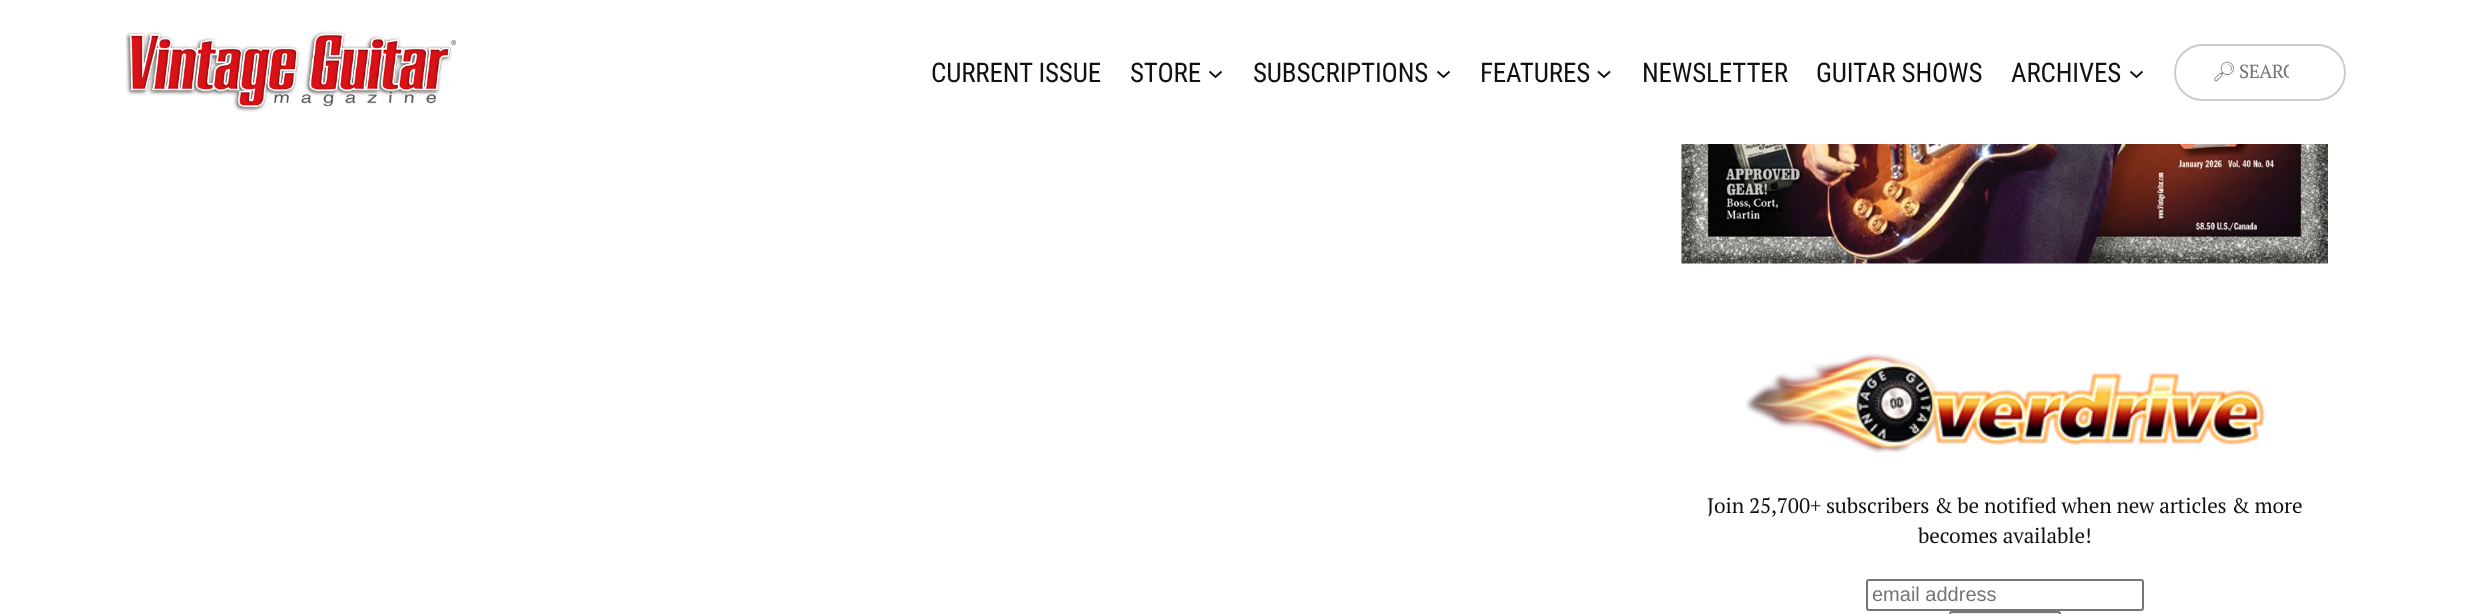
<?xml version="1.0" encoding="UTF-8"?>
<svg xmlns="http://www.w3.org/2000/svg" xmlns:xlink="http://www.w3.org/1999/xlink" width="2469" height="614">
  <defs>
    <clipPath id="clip1"><rect x="2213" y="59" width="76" height="25" /></clipPath>
  </defs>
  <rect width="100%" height="100%" fill="#ffffff" />
  <image x="125" y="31" width="331" height="81" xlink:href="image1.png" />
  <path d="M 1209.5 71.5 l 6 5.5 l 6 -5.5" fill="none" stroke="#111111" stroke-width="2" />
  <path d="M 1437.5 71.5 l 6 5.5 l 6 -5.5" fill="none" stroke="#111111" stroke-width="2" />
  <path d="M 1598 71.5 l 6 5.5 l 6 -5.5" fill="none" stroke="#111111" stroke-width="2" />
  <path d="M 2130.5 71.5 l 6 5.5 l 6 -5.5" fill="none" stroke="#111111" stroke-width="2" />
  <rect x="2175" y="45" width="170" height="55" rx="27.5" fill="none" stroke="#cccccc" stroke-width="2" />
  <image x="1681" y="144" width="647" height="120" xlink:href="image2.png" />
  <image x="1745" y="353" width="521" height="100" xlink:href="image3.png" />
  <rect x="1867" y="580" width="276" height="30" rx="2" fill="none" stroke="#767676" stroke-width="2" />
  <rect x="1950" y="612" width="110" height="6" rx="2" fill="#efefef" stroke="#767676" stroke-width="2" />
  <text x="931" y="82" style="font-family: Roboto Condensed; font-size: 27px; letter-spacing: -0.15px; fill: #111111">CURRENT ISSUE</text>
  <text x="1130" y="82" style="font-family: Roboto Condensed; font-size: 27px; letter-spacing: -0.15px; fill: #111111">STORE</text>
  <text x="1253" y="82" style="font-family: Roboto Condensed; font-size: 27px; letter-spacing: -0.15px; fill: #111111">SUBSCRIPTIONS</text>
  <text x="1480" y="82" style="font-family: Roboto Condensed; font-size: 27px; letter-spacing: -0.15px; fill: #111111">FEATURES</text>
  <text x="1642" y="82" style="font-family: Roboto Condensed; font-size: 27px; letter-spacing: -0.15px; fill: #111111">NEWSLETTER</text>
  <text x="1816" y="82" style="font-family: Roboto Condensed; font-size: 27px; letter-spacing: -0.15px; fill: #111111">GUITAR SHOWS</text>
  <text x="2011" y="82" style="font-family: Roboto Condensed; font-size: 27px; letter-spacing: -0.15px; fill: #111111">ARCHIVES</text>
  <text x="2212" y="78" style="font-family: Noto Emoji; font-size: 19px; letter-spacing: -0.5px; fill: #757575">🔎︎</text>
  <g clip-path="url(#clip1)">
    <text x="2239" y="78" style="font-family: PT Serif; font-size: 19px; letter-spacing: -0.5px; fill: #757575">SEARC</text>
  </g>
  <text x="1707" y="513" style="font-family: PT Serif; font-size: 21px; letter-spacing: -0.15px; fill: #111111">Join 25,700+ subscribers &amp; be notified when new articles &amp; more</text>
  <text x="1918" y="543" style="font-family: PT Serif; font-size: 21px; letter-spacing: -0.15px; fill: #111111">becomes available!</text>
  <text x="1872" y="601" style="font-family: Liberation Sans; font-size: 20px; fill: #757575">email address</text>
</svg>
